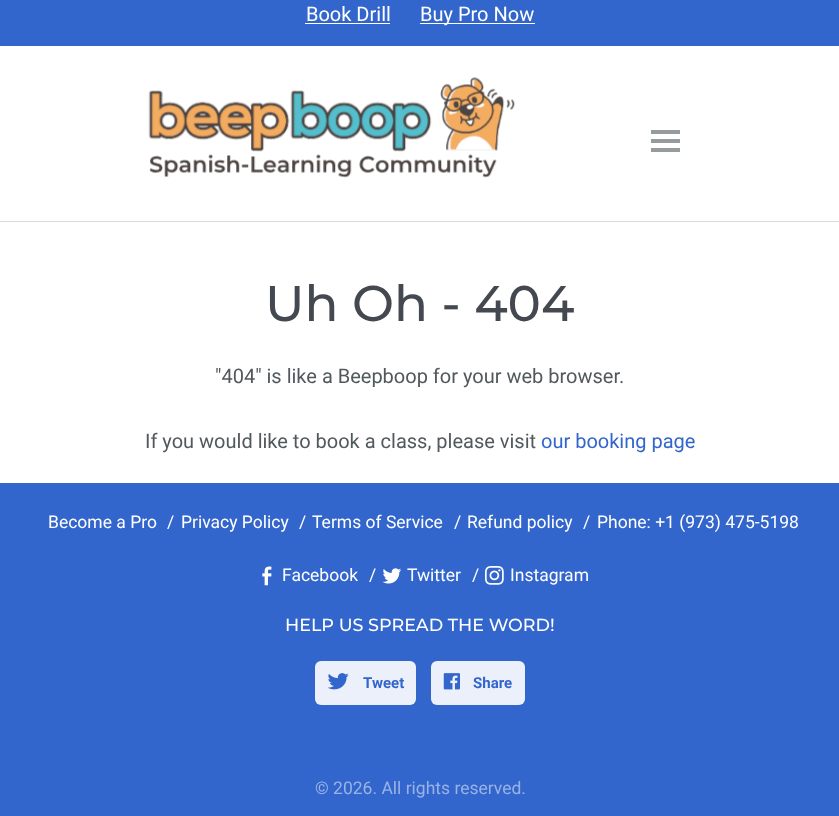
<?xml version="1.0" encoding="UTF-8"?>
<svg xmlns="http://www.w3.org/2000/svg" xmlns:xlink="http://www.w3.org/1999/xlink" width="839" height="816">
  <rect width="100%" height="100%" fill="#ffffff" />
  <rect y="221" width="839" height="1" fill="#d7dcde" />
  <rect width="839" height="46" fill="#3366cc" />
  <rect x="305" y="23" width="85" height="1" fill="#ffffff" />
  <rect x="420" y="23" width="115" height="1" fill="#ffffff" />
  <image x="148" y="77" width="367" height="101" xlink:href="image1.png" />
  <rect x="651" y="139" width="29" height="4" fill="#969b9d" />
  <rect x="651" y="130" width="29" height="4" fill="#969b9d" />
  <rect x="651" y="148" width="29" height="4" fill="#969b9d" />
  <rect y="483" width="839" height="333" fill="#3366cc" />
  <image x="262" y="566" width="10" height="20" xlink:href="image2.png" />
  <image x="382" y="568" width="20" height="16" xlink:href="image3.png" />
  <image x="485" y="566" width="19" height="19" xlink:href="image4.png" />
  <rect x="315" y="661" width="101" height="44" rx="6" fill="#ebf0fa" />
  <image x="327" y="673" width="22" height="17" xlink:href="image5.png" />
  <rect x="431" y="661" width="94" height="44" rx="6" fill="#ebf0fa" />
  <image x="443" y="673" width="17" height="17" xlink:href="image6.png" />
  <text x="306" y="21" style="font-family: Roboto; font-size: 20px; fill: #ffffff">Book Drill</text>
  <text x="420" y="21" style="font-family: Roboto; font-size: 20px; fill: #ffffff">Buy Pro Now</text>
  <text x="265" y="321" style="font-family: Montserrat; font-size: 50px; font-weight: 500; fill: #444951">Uh Oh - 404</text>
  <text x="215" y="383" style="font-family: Roboto; font-size: 20px; fill: #51595d">"404" is like a Beepboop for your web browser.</text>
  <text x="145" y="448" style="font-family: Roboto; font-size: 20px; fill: #51595d">If you would like to book a class, please visit</text>
  <text x="541" y="448" style="font-family: Roboto; font-size: 20px; fill: #3366cc">our booking page</text>
  <text x="48" y="528" style="font-family: Roboto; font-size: 17.5px; fill: #ffffff">Become a Pro</text>
  <text x="167" y="528" style="font-family: Roboto; font-size: 17.5px; fill: #ffffff">/</text>
  <text x="181" y="528" style="font-family: Roboto; font-size: 17.5px; fill: #ffffff">Privacy Policy</text>
  <text x="299" y="528" style="font-family: Roboto; font-size: 17.5px; fill: #ffffff">/</text>
  <text x="312" y="528" style="font-family: Roboto; font-size: 17.5px; fill: #ffffff">Terms of Service</text>
  <text x="454" y="528" style="font-family: Roboto; font-size: 17.5px; fill: #ffffff">/</text>
  <text x="467" y="528" style="font-family: Roboto; font-size: 17.5px; fill: #ffffff">Refund policy</text>
  <text x="583" y="528" style="font-family: Roboto; font-size: 17.5px; fill: #ffffff">/</text>
  <text x="597" y="528" style="font-family: Roboto; font-size: 17.5px; fill: #ffffff">Phone: +1 (973) 475-5198</text>
  <text x="282" y="581" style="font-family: Roboto; font-size: 17.5px; fill: #ffffff">Facebook</text>
  <text x="369" y="581" style="font-family: Roboto; font-size: 17.5px; fill: #ffffff">/</text>
  <text x="407" y="581" style="font-family: Roboto; font-size: 17.5px; fill: #ffffff">Twitter</text>
  <text x="472" y="581" style="font-family: Roboto; font-size: 17.5px; fill: #ffffff">/</text>
  <text x="510" y="581" style="font-family: Roboto; font-size: 17.5px; fill: #ffffff">Instagram</text>
  <text x="285" y="631" style="font-family: Montserrat; font-size: 17.5px; font-weight: 500; fill: #ffffff">HELP US SPREAD THE WORD!</text>
  <text x="363" y="688" style="font-family: Roboto; font-size: 15px; font-weight: bold; fill: #3366cc">Tweet</text>
  <text x="473" y="688" style="font-family: Roboto; font-size: 15px; font-weight: bold; fill: #3366cc">Share</text>
  <text x="315" y="794" style="font-family: Roboto; font-size: 17.5px; fill: #99b3e6">© 2026. All rights reserved.</text>
</svg>
